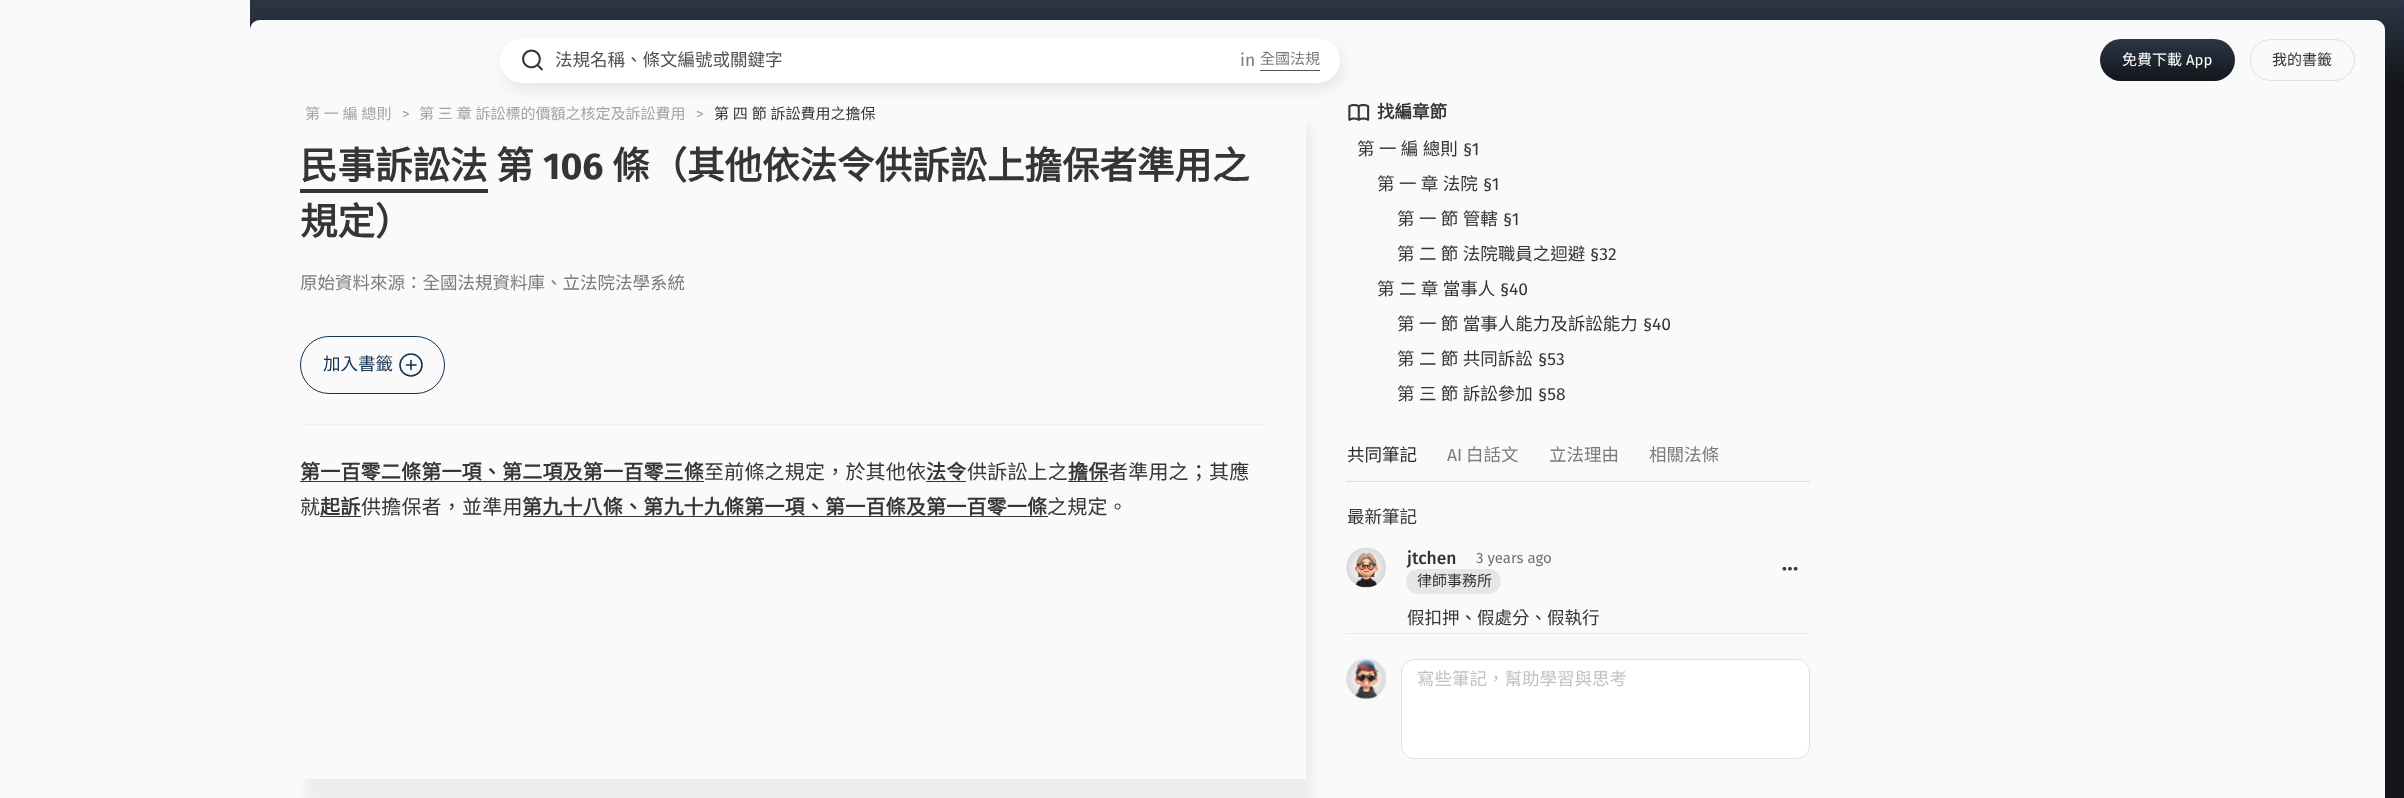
<?xml version="1.0" encoding="UTF-8"?>
<svg xmlns="http://www.w3.org/2000/svg" xmlns:xlink="http://www.w3.org/1999/xlink" width="2404" height="798">
  <defs>
    <linearGradient id="g1" gradientUnits="userSpaceOnUse" x1="1318" y1="84" x2="1318" y2="0"><stop offset="0" stop-color="#14161a" /><stop offset="0.5" stop-color="#1e2631" /><stop offset="1" stop-color="#2b3646" /></linearGradient>
    <linearGradient id="g2" gradientUnits="userSpaceOnUse" x1="2168" y1="81" x2="2168" y2="39"><stop offset="0" stop-color="#14161a" /><stop offset="0.5" stop-color="#1e2631" /><stop offset="1" stop-color="#2b3646" /></linearGradient>
    <linearGradient id="g3" gradientUnits="userSpaceOnUse" x1="2395" y1="84" x2="2395" y2="0"><stop offset="0" stop-color="#14161a" /><stop offset="0.5" stop-color="#1e2631" /><stop offset="1" stop-color="#2b3646" /></linearGradient>
    <clipPath id="clip1"><path d="M 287 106 h 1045 v 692 h -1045 z m 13 -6 h 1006 v 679 h -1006 z" clip-rule="evenodd" /></clipPath>
  </defs>
  <rect width="100%" height="100%" fill="#fafafa" />
  <rect x="250" width="2135" height="30" fill="url(#g1)" />
  <path d="M 260 20 h 2115 c 5.5 0 10 4.5 10 10 v 70 h -2135 v -70 c 0 -5.5 4.5 -10 10 -10 z" fill="#fafafa" />
  <image x="1348" y="103" width="22" height="18" xlink:href="image2.png" />
  <rect x="503" y="45" width="840" height="45" rx="22.5" fill="#000000" fill-opacity="0.08" filter="blur(7.5px)" />
  <rect x="500" y="38" width="840" height="45" rx="22.5" fill="#ffffff" />
  <image x="522" y="49" width="21" height="22" xlink:href="image1.png" />
  <rect x="1260" y="70" width="60" height="1" fill="#545050" />
  <rect x="2100" y="39" width="135" height="42" rx="21" fill="url(#g2)" />
  <rect x="2250.5" y="39.5" width="104" height="41" rx="20.5" fill="none" stroke="#e0e0e6" />
  <rect x="2385" y="84" width="19" height="714" fill="#131519" />
  <rect x="2385" width="19" height="84" fill="url(#g3)" />
  <g clip-path="url(#clip1)">
    <rect x="306" y="125" width="1007" height="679" fill="#000000" fill-opacity="0.05" filter="blur(6px)" />
  </g>
  <rect x="300" y="189" width="188" height="4" fill="#353535" />
  <circle cx="411" cy="365" r="11" fill="none" stroke="#133250" stroke-width="1.6" />
  <path d="M 406.5 365 h 9.5 m -5 -4.5 v 9" fill="none" stroke="#133250" stroke-width="1.6" stroke-linecap="round" stroke-linejoin="round" />
  <rect x="300.5" y="336.5" width="144" height="57" rx="28.5" fill="none" stroke="#133250" />
  <rect x="300" y="424" width="966" height="1" fill="#efeff5" />
  <rect x="300" y="481" width="404" height="1" fill="#353535" />
  <rect x="926" y="481" width="40" height="1" fill="#353535" />
  <rect x="1068" y="481" width="40" height="1" fill="#353535" />
  <rect x="320" y="516" width="41" height="1" fill="#353535" />
  <rect x="523" y="516" width="525" height="1" fill="#353535" />
  <rect x="1346" y="481" width="464" height="1" fill="#dcdcdc" />
  <image x="1346" y="547" width="40" height="41" xlink:href="image3.png" />
  <image x="1782" y="566" width="16" height="5" xlink:href="image4.png" />
  <rect x="1406" y="569" width="95" height="25" rx="12.5" fill="#e6e6e6" />
  <rect x="1346" y="633" width="464" height="1" fill="#e5e7eb" />
  <image x="1346" y="658" width="41" height="41" xlink:href="image5.png" />
  <rect x="1401" y="659" width="409" height="100" rx="13" fill="#ffffff" />
  <rect x="1401.5" y="659.5" width="408" height="99" rx="12.5" fill="none" stroke="#e0e0e6" />
  <text x="555" y="66" style="font-family: Noto Sans CJK TC; font-size: 17.5px; fill: #545050">法規名稱、條文編號或關鍵字</text>
  <text x="1240" y="66" style="font-family: Fira Sans; font-size: 17.5px; fill: #7a7c7b">in</text>
  <text x="1260" y="64" style="font-family: Noto Sans CJK TC; font-size: 15px; fill: #7a7c7b">全國法規</text>
  <text x="2122" y="65" style="font-family: Noto Sans CJK TC; font-size: 15px; fill: #ffffff">免費下載</text>
  <text x="2186" y="65" style="font-family: Fira Sans; font-size: 15px; fill: #ffffff">App</text>
  <text x="2272" y="65" style="font-family: Noto Sans CJK TC; font-size: 15px; fill: #353535">我的書籤</text>
  <text x="305" y="119" word-spacing="0.5" style="font-family: Noto Sans CJK TC; font-size: 15px; fill: #a3a3a3">第 一 編 總則</text>
  <text x="402" y="119" style="font-family: Fira Sans; font-size: 15px; fill: #a3a3a3">&gt;</text>
  <text x="419" y="119" word-spacing="0.5" style="font-family: Noto Sans CJK TC; font-size: 15px; fill: #a3a3a3">第 三 章 訴訟標的價額之核定及訴訟費用</text>
  <text x="696" y="119" style="font-family: Fira Sans; font-size: 15px; fill: #a3a3a3">&gt;</text>
  <text x="714" y="119" word-spacing="0.5" style="font-family: Noto Sans CJK TC; font-size: 15px; fill: #353535">第 四 節 訴訟費用之擔保</text>
  <text x="300" y="179" style="font-family: Noto Sans CJK TC; font-size: 37.5px; font-weight: bold; fill: #353535">民事訴訟法</text>
  <text x="496" y="179" style="font-family: Noto Sans CJK TC; font-size: 37.5px; font-weight: bold; fill: #353535">第</text>
  <text x="543" y="179" style="font-family: Fira Sans; font-size: 37.5px; font-weight: bold; fill: #353535">106</text>
  <text x="612" y="179" style="font-family: Noto Sans CJK TC; font-size: 37.5px; font-weight: bold; fill: #353535">條（其他依法令供訴訟上擔保者準用之</text>
  <text x="300" y="235" style="font-family: Noto Sans CJK TC; font-size: 37.5px; font-weight: bold; fill: #353535">規定）</text>
  <text x="300" y="289" style="font-family: Noto Sans CJK TC; font-size: 17.5px; fill: #7a7c7b">原始資料來源：全國法規資料庫、立法院法學系統</text>
  <text x="323" y="370" style="font-family: Noto Sans CJK TC; font-size: 17.5px; fill: #133250">加入書籤</text>
  <text x="300" y="479" style="font-family: Noto Sans CJK TC; font-size: 20px; font-weight: bold; letter-spacing: 0.2px; fill: #353535">第一百零二條第一項、第二項及第一百零三條</text>
  <text x="704" y="479" style="font-family: Noto Sans CJK TC; font-size: 20px; letter-spacing: 0.2px; fill: #353535">至前條之規定，於其他依</text>
  <text x="926" y="479" style="font-family: Noto Sans CJK TC; font-size: 20px; font-weight: bold; letter-spacing: 0.2px; fill: #353535">法令</text>
  <text x="967" y="479" style="font-family: Noto Sans CJK TC; font-size: 20px; letter-spacing: 0.2px; fill: #353535">供訴訟上之</text>
  <text x="1068" y="479" style="font-family: Noto Sans CJK TC; font-size: 20px; font-weight: bold; letter-spacing: 0.2px; fill: #353535">擔保</text>
  <text x="1108" y="479" style="font-family: Noto Sans CJK TC; font-size: 20px; letter-spacing: 0.2px; fill: #353535">者準用之；其應</text>
  <text x="300" y="514" style="font-family: Noto Sans CJK TC; font-size: 20px; letter-spacing: 0.2px; fill: #353535">就</text>
  <text x="320" y="514" style="font-family: Noto Sans CJK TC; font-size: 20px; font-weight: bold; letter-spacing: 0.2px; fill: #353535">起訴</text>
  <text x="361" y="514" style="font-family: Noto Sans CJK TC; font-size: 20px; letter-spacing: 0.2px; fill: #353535">供擔保者，並準用</text>
  <text x="522" y="514" style="font-family: Noto Sans CJK TC; font-size: 20px; font-weight: bold; letter-spacing: 0.2px; fill: #353535">第九十八條、第九十九條第一項、第一百條及第一百零一條</text>
  <text x="1047" y="514" style="font-family: Noto Sans CJK TC; font-size: 20px; letter-spacing: 0.2px; fill: #353535">之規定。</text>
  <text x="1377" y="118" style="font-family: Noto Sans CJK TC; font-size: 17.5px; font-weight: bold; fill: #353535">找編章節</text>
  <text x="1357" y="155" word-spacing="0.5" style="font-family: Noto Sans CJK TC; font-size: 17.5px; fill: #353535">第 一 編 總則</text>
  <text x="1463" y="155" style="font-family: Fira Sans; font-size: 17.5px; fill: #353535">§1</text>
  <text x="1377" y="190" word-spacing="0.5" style="font-family: Noto Sans CJK TC; font-size: 17.5px; fill: #353535">第 一 章 法院</text>
  <text x="1483" y="190" style="font-family: Fira Sans; font-size: 17.5px; fill: #353535">§1</text>
  <text x="1397" y="225" word-spacing="0.5" style="font-family: Noto Sans CJK TC; font-size: 17.5px; fill: #353535">第 一 節 管轄</text>
  <text x="1503" y="225" style="font-family: Fira Sans; font-size: 17.5px; fill: #353535">§1</text>
  <text x="1397" y="260" word-spacing="0.5" style="font-family: Noto Sans CJK TC; font-size: 17.5px; fill: #353535">第 二 節 法院職員之迴避</text>
  <text x="1590" y="260" style="font-family: Fira Sans; font-size: 17.5px; fill: #353535">§32</text>
  <text x="1377" y="295" word-spacing="0.5" style="font-family: Noto Sans CJK TC; font-size: 17.5px; fill: #353535">第 二 章 當事人</text>
  <text x="1500" y="295" style="font-family: Fira Sans; font-size: 17.5px; fill: #353535">§40</text>
  <text x="1397" y="330" word-spacing="0.5" style="font-family: Noto Sans CJK TC; font-size: 17.5px; fill: #353535">第 一 節 當事人能力及訴訟能力</text>
  <text x="1643" y="330" style="font-family: Fira Sans; font-size: 17.5px; fill: #353535">§40</text>
  <text x="1397" y="365" word-spacing="0.5" style="font-family: Noto Sans CJK TC; font-size: 17.5px; fill: #353535">第 二 節 共同訴訟</text>
  <text x="1538" y="365" style="font-family: Fira Sans; font-size: 17.5px; fill: #353535">§53</text>
  <text x="1397" y="400" word-spacing="0.5" style="font-family: Noto Sans CJK TC; font-size: 17.5px; fill: #353535">第 三 節 訴訟參加</text>
  <text x="1538" y="400" style="font-family: Fira Sans; font-size: 17.5px; fill: #353535">§58</text>
  <text x="1347" y="461" style="font-family: Noto Sans CJK TC; font-size: 17.5px; fill: #2a2a2a">共同筆記</text>
  <text x="1447" y="461" style="font-family: Fira Sans; font-size: 17.5px; fill: #7a7c7b">AI</text>
  <text x="1466" y="461" style="font-family: Noto Sans CJK TC; font-size: 17.5px; fill: #7a7c7b">白話文</text>
  <text x="1549" y="461" style="font-family: Noto Sans CJK TC; font-size: 17.5px; fill: #7a7c7b">立法理由</text>
  <text x="1649" y="461" style="font-family: Noto Sans CJK TC; font-size: 17.5px; fill: #7a7c7b">相關法條</text>
  <text x="1347" y="523" style="font-family: Noto Sans CJK TC; font-size: 17.5px; fill: #353535">最新筆記</text>
  <text x="1407" y="564" style="font-family: Fira Sans; font-size: 17.5px; font-weight: 500; fill: #353535">jtchen</text>
  <text x="1476" y="563" style="font-family: Fira Sans; font-size: 15px; fill: #6b7280">3 years ago</text>
  <text x="1417" y="586" style="font-family: Noto Sans CJK TC; font-size: 15px; fill: #353535">律師事務所</text>
  <text x="1407" y="624" style="font-family: Noto Sans CJK TC; font-size: 17.5px; fill: #353535">假扣押、假處分、假執行</text>
  <text x="1417" y="685" style="font-family: Noto Sans CJK TC; font-size: 17.5px; fill: #c2c2c2">寫些筆記，幫助學習與思考</text>
</svg>
